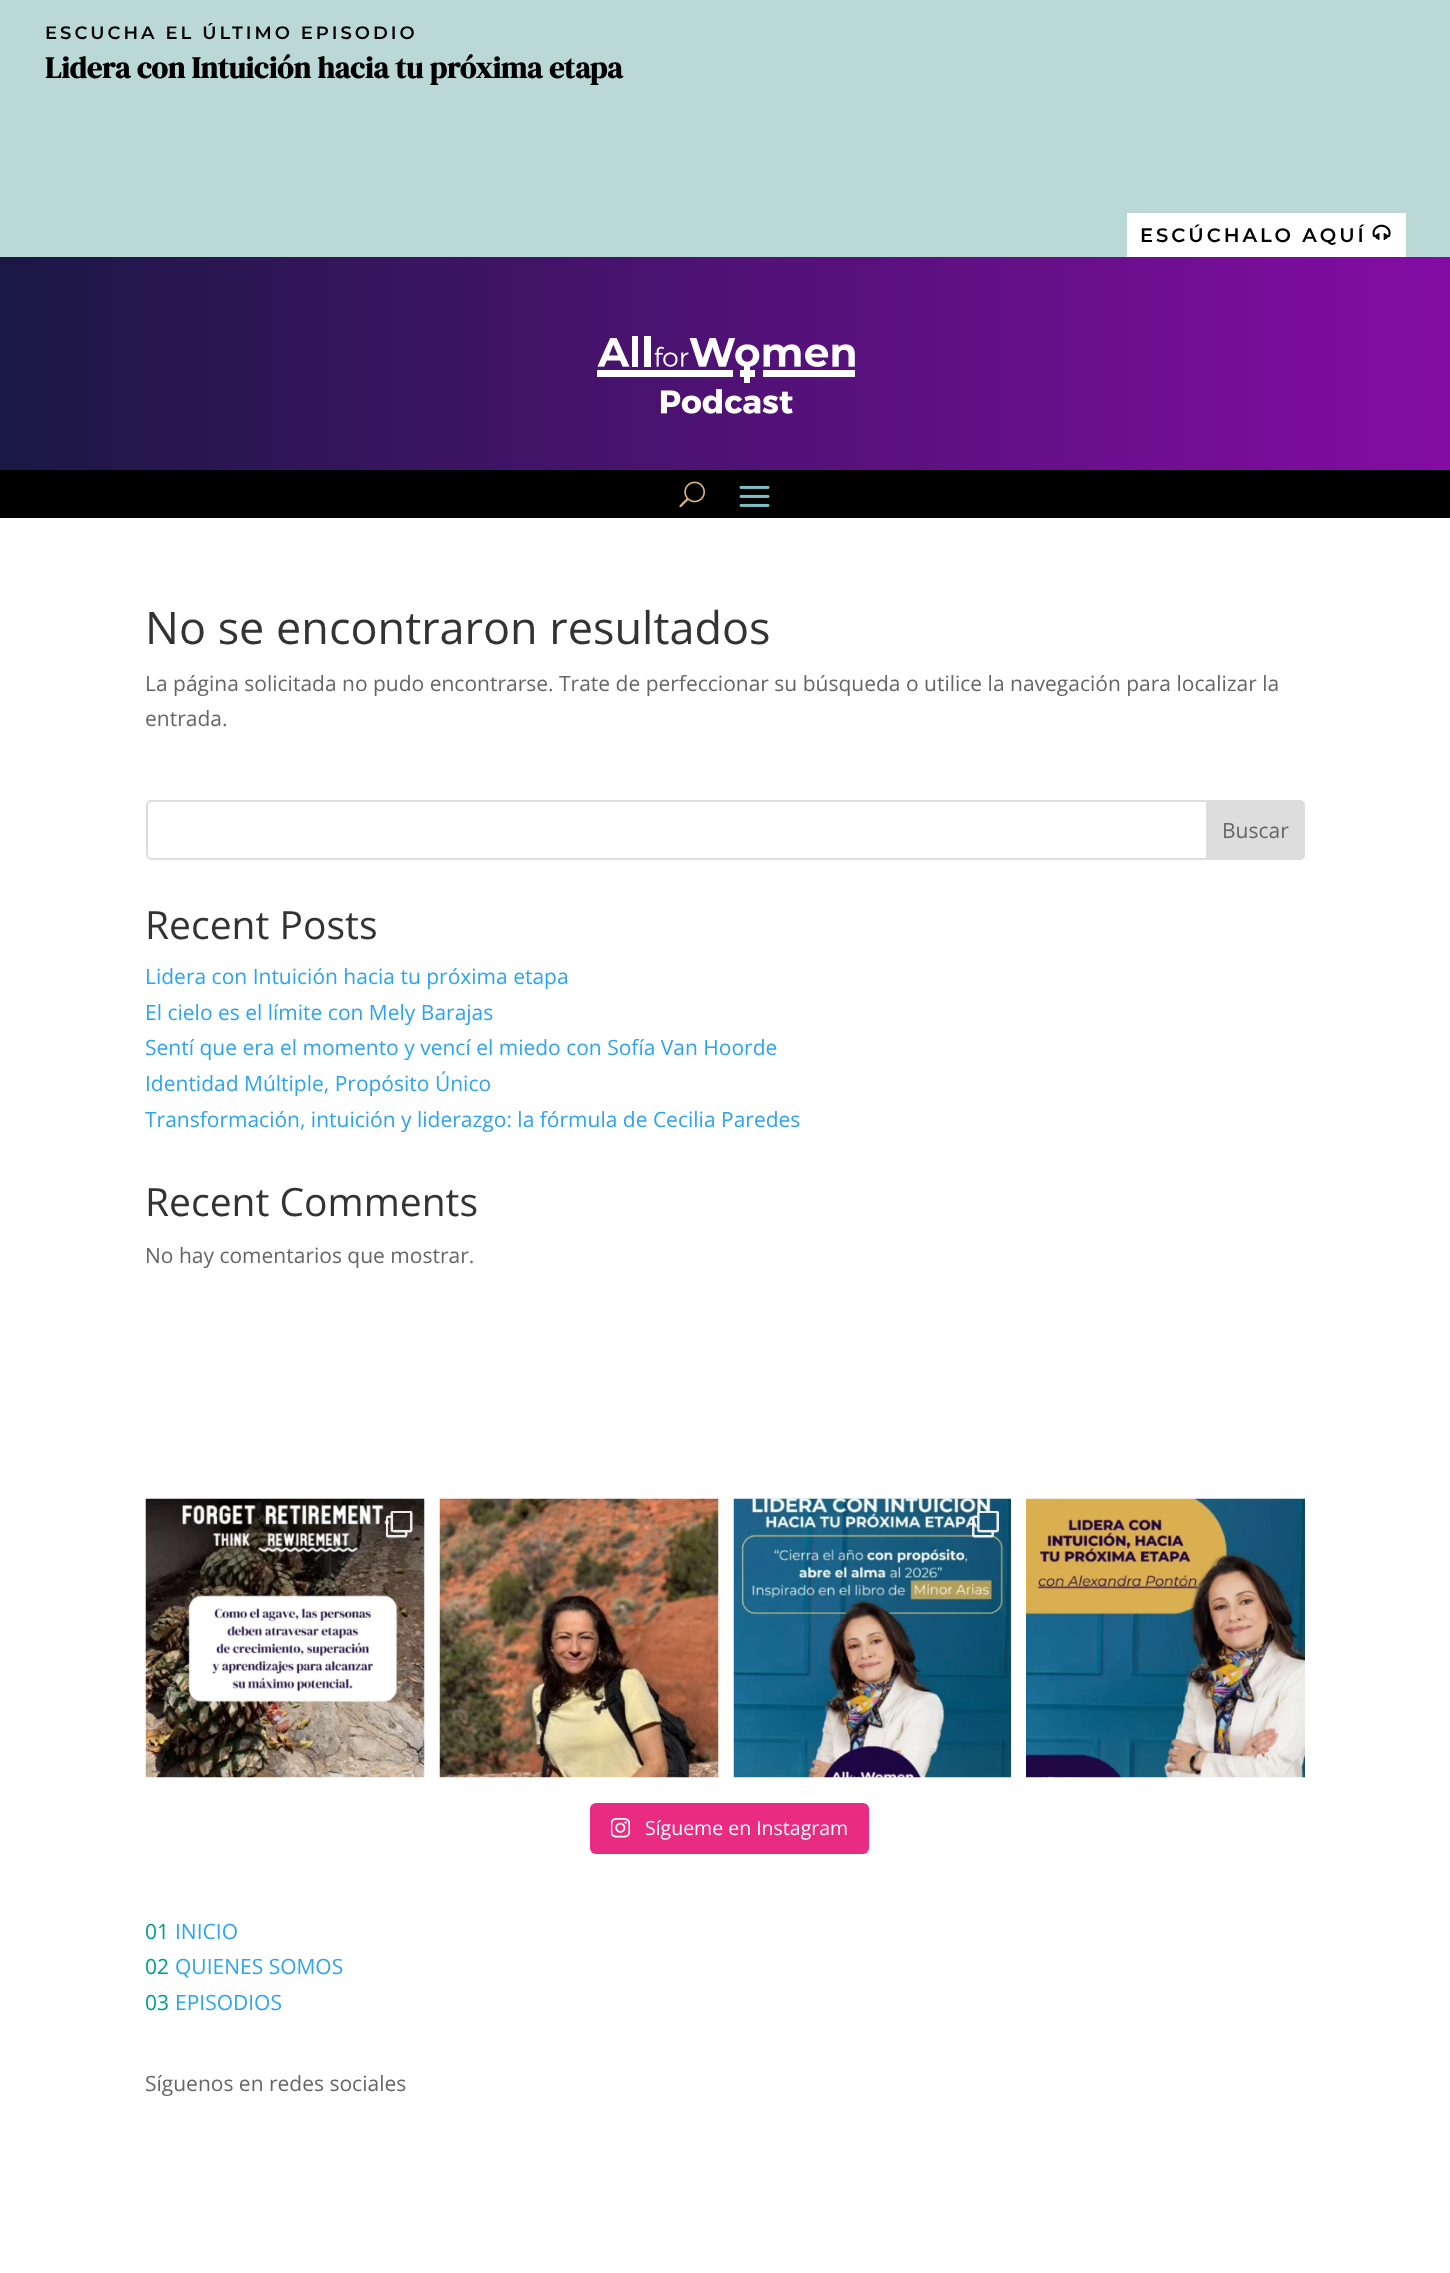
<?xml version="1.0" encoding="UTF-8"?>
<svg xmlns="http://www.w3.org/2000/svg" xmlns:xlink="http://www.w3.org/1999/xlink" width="1450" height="2273">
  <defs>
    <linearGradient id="g1" gradientUnits="userSpaceOnUse" x1="0" y1="363" x2="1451" y2="363"><stop offset="0" stop-color="#1a1844" /><stop offset="1" stop-color="#840ca4" /></linearGradient>
  </defs>
  <rect width="100%" height="100%" fill="#ffffff" />
  <rect width="1450" height="257" fill="#bad8d5" />
  <rect x="1127" y="213" width="279" height="44" fill="#ffffff" />
  <image x="1372" y="224" width="19" height="16" xlink:href="image1.png" />
  <rect y="257" width="1450" height="213" fill="url(#g1)" />
  <image x="597" y="336" width="258" height="78" xlink:href="image2.png" />
  <rect y="470" width="1450" height="48" fill="#000000" />
  <image x="679" y="481" width="26" height="27" xlink:href="image3.png" />
  <image x="739" y="485" width="31" height="22" xlink:href="image4.png" />
  <rect x="147" y="801" width="1157" height="58" rx="4" fill="none" stroke="#dddddd" stroke-width="2" />
  <path d="M 1207 801 h 93 c 2 0 4 2 4 4 v 50 c 0 2 -2 4 -4 4 h -93 z" fill="#dddddd" stroke="#dddddd" stroke-width="2" />
  <image x="145" y="1498" width="280" height="280" xlink:href="image5.png" />
  <image x="386" y="1511" width="27" height="27" xlink:href="image6.png" />
  <image x="439" y="1498" width="280" height="280" xlink:href="image7.png" />
  <image x="733" y="1498" width="278" height="280" xlink:href="image8.png" />
  <image x="972" y="1511" width="27" height="27" xlink:href="image9.png" />
  <image x="1026" y="1498" width="279" height="280" xlink:href="image10.png" />
  <rect x="590" y="1803" width="279" height="51" rx="6" fill="#e92b82" />
  <image x="611" y="1818" width="19" height="20" xlink:href="image11.png" />
  <text x="45" y="39" style="font-family: Montserrat; font-size: 18px; font-weight: 100; letter-spacing: 3px; fill: #000000">ESCUCHA EL ÚLTIMO EPISODIO</text>
  <text x="45" y="78" style="font-family: DM Serif Display; font-size: 30px; font-weight: bold; fill: #000000">Lidera con Intuición hacia tu próxima etapa</text>
  <text x="1140" y="242" style="font-family: Montserrat; font-size: 19.5px; font-weight: 100; letter-spacing: 3px; fill: #000000">ESCÚCHALO AQUÍ</text>
  <text x="145" y="644" style="font-family: Open Sans; font-size: 45px; fill: #333333">No se encontraron resultados</text>
  <text x="145" y="691" style="font-family: Open Sans; font-size: 21px; fill: #666666">La página solicitada no pudo encontrarse. Trate de perfeccionar su búsqueda o utilice la navegación para localizar la</text>
  <text x="145" y="726" style="font-family: Open Sans; font-size: 21px; fill: #666666">entrada.</text>
  <text x="1222" y="838" style="font-family: Open Sans; font-size: 21px; fill: #666666">Buscar</text>
  <text x="145" y="939" style="font-family: Open Sans; font-size: 39px; fill: #333333">Recent Posts</text>
  <text x="145" y="984" style="font-family: Open Sans; font-size: 21px; fill: #2ea3f2">Lidera con Intuición hacia tu próxima etapa</text>
  <text x="145" y="1020" style="font-family: Open Sans; font-size: 21px; fill: #2ea3f2">El cielo es el límite con Mely Barajas</text>
  <text x="145" y="1055" style="font-family: Open Sans; font-size: 21px; fill: #2ea3f2">Sentí que era el momento y vencí el miedo con Sofía Van Hoorde</text>
  <text x="145" y="1091" style="font-family: Open Sans; font-size: 21px; fill: #2ea3f2">Identidad Múltiple, Propósito Único</text>
  <text x="145" y="1127" style="font-family: Open Sans; font-size: 21px; fill: #2ea3f2">Transformación, intuición y liderazgo: la fórmula de Cecilia Paredes</text>
  <text x="145" y="1216" style="font-family: Open Sans; font-size: 39px; fill: #333333">Recent Comments</text>
  <text x="145" y="1263" style="font-family: Open Sans; font-size: 21px; fill: #666666">No hay comentarios que mostrar.</text>
  <text x="645" y="1835" style="font-family: Open Sans; font-size: 19.5px; fill: #ffffff">Sígueme en Instagram</text>
  <text x="145" y="1939" style="font-family: Open Sans; font-size: 21px; fill: #009d8a">01</text>
  <text x="175" y="1939" style="font-family: Open Sans; font-size: 21px; fill: #2ea3f2">INICIO</text>
  <text x="145" y="1974" style="font-family: Open Sans; font-size: 21px; fill: #009d8a">02</text>
  <text x="175" y="1974" style="font-family: Open Sans; font-size: 21px; fill: #2ea3f2">QUIENES SOMOS</text>
  <text x="145" y="2010" style="font-family: Open Sans; font-size: 21px; fill: #009d8a">03</text>
  <text x="175" y="2010" style="font-family: Open Sans; font-size: 21px; fill: #2ea3f2">EPISODIOS</text>
  <text x="145" y="2091" style="font-family: Open Sans; font-size: 21px; fill: #666666">Síguenos en redes sociales</text>
</svg>
